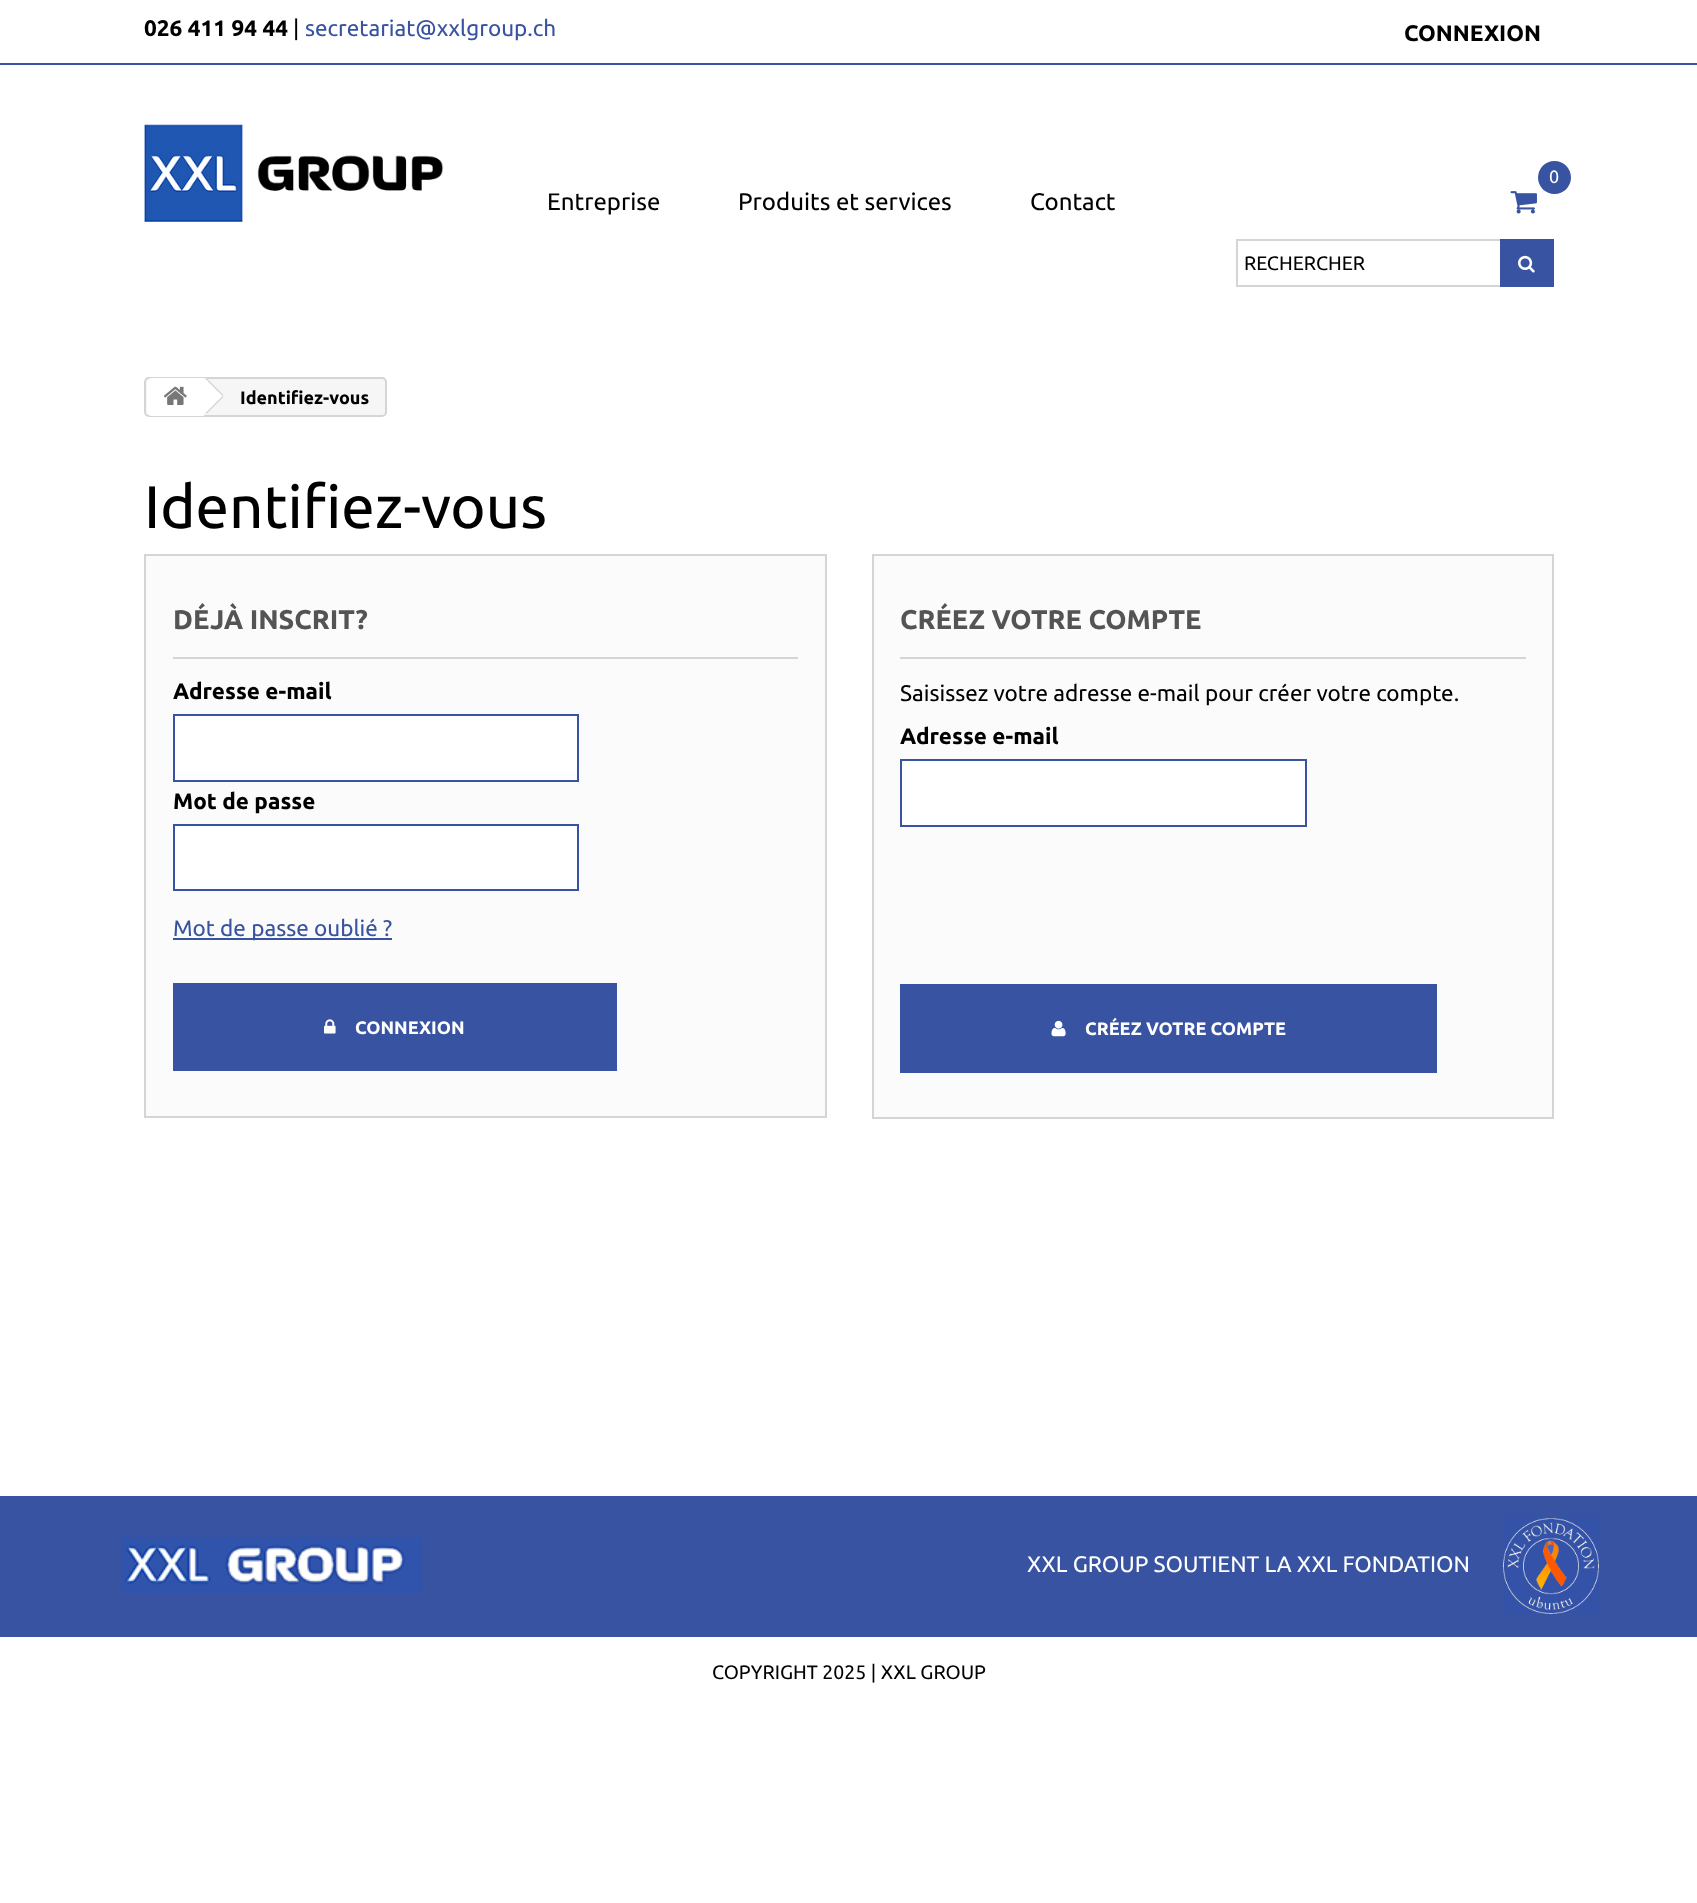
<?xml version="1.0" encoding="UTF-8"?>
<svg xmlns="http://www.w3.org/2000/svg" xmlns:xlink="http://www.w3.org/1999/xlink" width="1697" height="1903">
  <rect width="100%" height="100%" fill="#ffffff" />
  <rect y="63" width="1697" height="2" fill="#3853a1" />
  <image x="144" y="124" width="300" height="98" xlink:href="image1.png" />
  <circle cx="1554.5" cy="177.5" r="16.5" fill="#3853a1" />
  <image x="1510" y="191" width="27" height="23" xlink:href="image2.png" />
  <rect x="1237" y="240" width="316" height="46" fill="none" stroke="#d6d4d4" stroke-width="2" />
  <rect x="1500" y="239" width="54" height="48" fill="#3853a1" />
  <image x="1518" y="255" width="17" height="18" xlink:href="image3.png" />
  <rect x="145" y="378" width="241" height="38" rx="4" fill="#f6f6f6" stroke="#d6d4d4" stroke-width="2" />
  <path d="M 152 378 h 52 v 38 h -52 c -3 0 -5 -2 -5 -5 v -28 c 0 -3 2 -5 5 -5 z" fill="#ffffff" />
  <image x="164" y="386" width="23" height="19" xlink:href="image4.png" />
  <path d="M 207.5 379 l 15 15 c 1 1 1 3 0 4 l -15 15 c -1 1 -3 1 -4 0 l -15 -15 c -1 -1 -1 -3 0 -4 l 15 -15 c 1 -1 3 -1 4 0 z" fill="#ffffff" />
  <path d="M 206.5 378 l 17 17 l -1 1 l -17 -17 z m 16 18 l 1 1 l -17 17 l -1 -1 z" fill="#d6d4d4" />
  <rect x="145" y="555" width="681" height="562" fill="#fbfbfb" stroke="#d6d4d4" stroke-width="2" />
  <rect x="173" y="657" width="625" height="2" fill="#d6d4d4" />
  <rect x="174" y="715" width="404" height="66" fill="#ffffff" stroke="#3853a1" stroke-width="2" />
  <rect x="174" y="825" width="404" height="65" fill="#ffffff" stroke="#3853a1" stroke-width="2" />
  <rect x="173" y="938" width="219" height="2" fill="#3853a1" />
  <rect x="173" y="983" width="444" height="88" fill="#3853a1" />
  <image x="324" y="1019" width="12" height="15" xlink:href="image5.png" />
  <rect x="873" y="555" width="680" height="563" fill="#fbfbfb" stroke="#d6d4d4" stroke-width="2" />
  <rect x="900" y="657" width="626" height="2" fill="#d6d4d4" />
  <rect x="901" y="760" width="405" height="66" fill="#ffffff" stroke="#3853a1" stroke-width="2" />
  <rect x="900" y="984" width="537" height="89" fill="#3853a1" />
  <image x="1051" y="1020" width="15" height="17" xlink:href="image6.png" />
  <rect y="1496" width="1697" height="141" fill="#3853a1" />
  <image x="121" y="1537" width="301" height="56" xlink:href="image7.png" />
  <image x="1503" y="1518" width="96" height="96" xlink:href="image8.png" />
  <text x="144" y="36" style="font-family: Ubuntu; font-size: 22.5px; font-weight: bold; fill: #000000">026 411 94 44</text>
  <text x="293" y="36" style="font-family: Ubuntu; font-size: 22.5px; fill: #000000">|</text>
  <text x="305" y="36" style="font-family: Ubuntu; font-size: 22.5px; fill: #3853a1">secretariat@xxlgroup.ch</text>
  <text x="1404" y="41" style="font-family: Ubuntu; font-size: 22.5px; font-weight: bold; fill: #000000">CONNEXION</text>
  <text x="547" y="210" style="font-family: Ubuntu; font-size: 24px; fill: #000000">Entreprise</text>
  <text x="738" y="210" style="font-family: Ubuntu; font-size: 24px; fill: #000000">Produits et services</text>
  <text x="1030" y="210" style="font-family: Ubuntu; font-size: 24px; fill: #000000">Contact</text>
  <text x="1549" y="183" style="font-family: Ubuntu; font-size: 18px; fill: #ffffff">0</text>
  <text x="1244" y="270" style="font-family: Ubuntu; font-size: 19.5px; fill: #000000">RECHERCHER</text>
  <text x="240" y="404" style="font-family: Ubuntu; font-size: 18px; font-weight: bold; fill: #000000">Identifiez-vous</text>
  <text x="144" y="528" style="font-family: Ubuntu; font-size: 60px; fill: #000000">Identifiez-vous</text>
  <text x="173" y="629" style="font-family: Ubuntu; font-size: 27px; font-weight: bold; fill: #555454">DÉJÀ INSCRIT?</text>
  <text x="173" y="699" style="font-family: Ubuntu; font-size: 22.5px; font-weight: bold; fill: #000000">Adresse e-mail</text>
  <text x="173" y="809" style="font-family: Ubuntu; font-size: 22.5px; font-weight: bold; fill: #000000">Mot de passe</text>
  <text x="173" y="936" style="font-family: Ubuntu; font-size: 22.5px; fill: #3853a1">Mot de passe oublié ?</text>
  <text x="355" y="1034" style="font-family: Ubuntu; font-size: 18px; font-weight: bold; fill: #ffffff">CONNEXION</text>
  <text x="900" y="629" style="font-family: Ubuntu; font-size: 27px; font-weight: bold; fill: #555454">CRÉEZ VOTRE COMPTE</text>
  <text x="900" y="701" style="font-family: Ubuntu; font-size: 22.5px; fill: #000000">Saisissez votre adresse e-mail pour créer votre compte.</text>
  <text x="900" y="744" style="font-family: Ubuntu; font-size: 22.5px; font-weight: bold; fill: #000000">Adresse e-mail</text>
  <text x="1085" y="1035" style="font-family: Ubuntu; font-size: 18px; font-weight: bold; fill: #ffffff">CRÉEZ VOTRE COMPTE</text>
  <text x="1027" y="1572" style="font-family: Ubuntu; font-size: 22.5px; fill: #ffffff">XXL GROUP SOUTIENT LA XXL FONDATION</text>
  <text x="712" y="1679" style="font-family: Ubuntu; font-size: 19.5px; fill: #000000">COPYRIGHT 2025 | XXL GROUP</text>
</svg>
